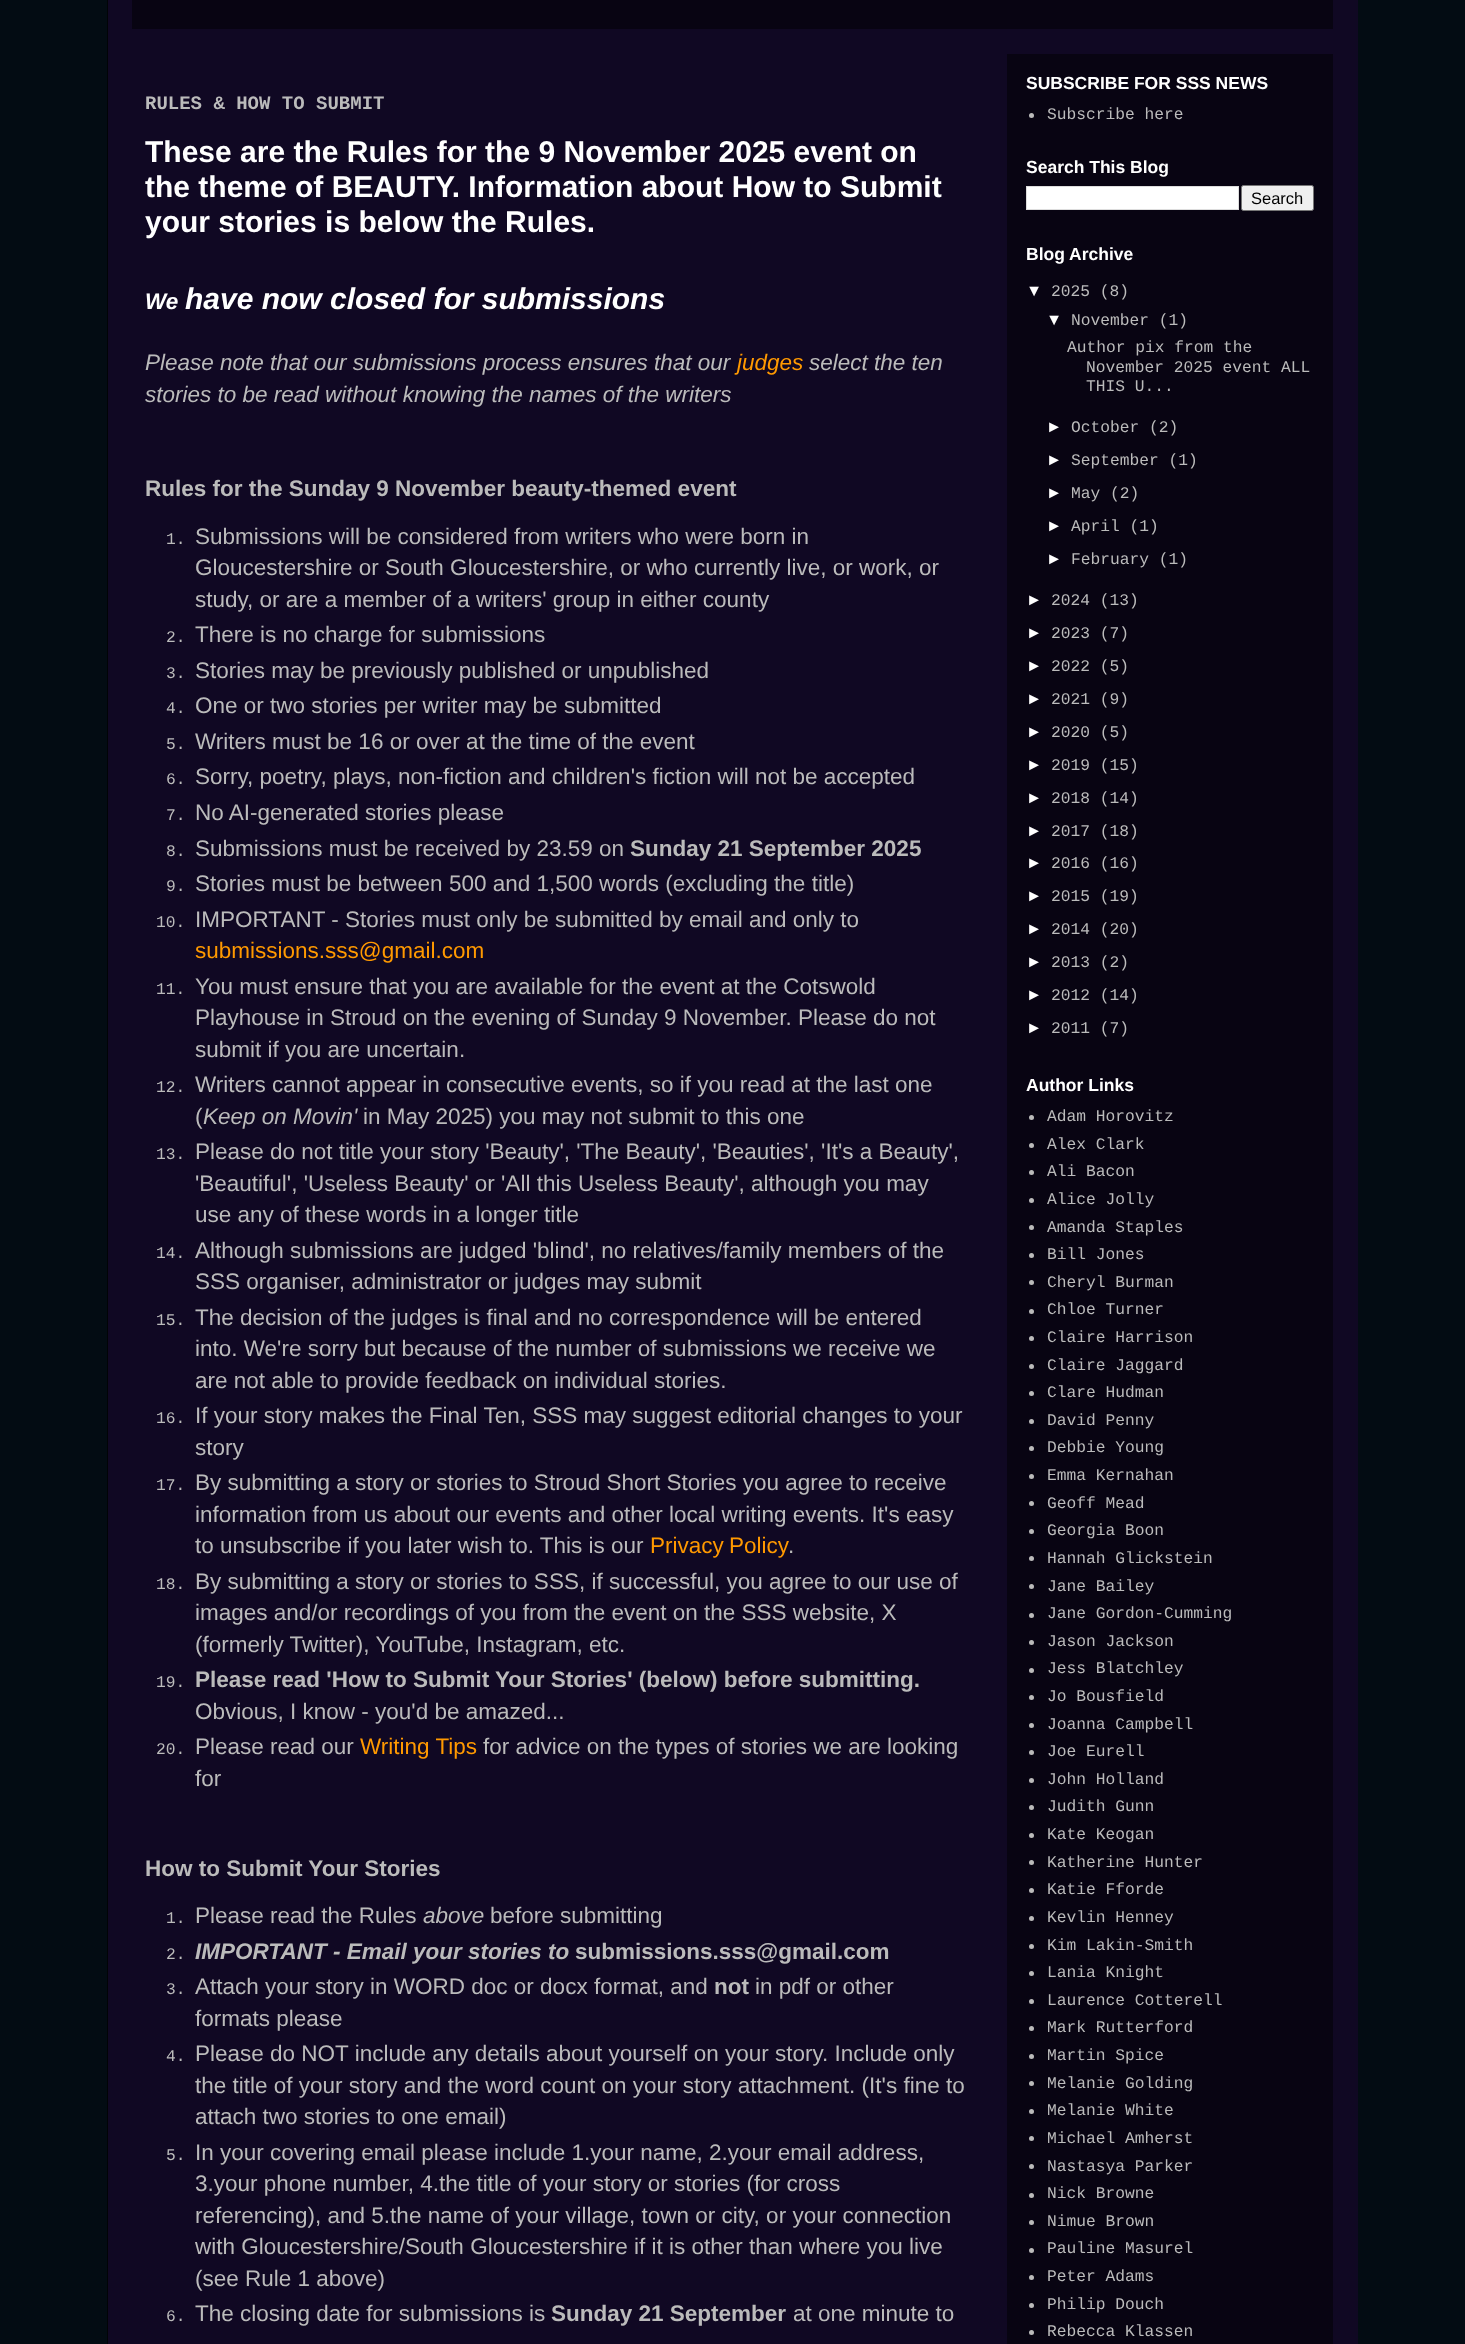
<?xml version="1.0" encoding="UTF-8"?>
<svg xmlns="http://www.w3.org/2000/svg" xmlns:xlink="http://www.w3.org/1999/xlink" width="1465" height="2344">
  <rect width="100%" height="100%" fill="#030c13" />
  <rect x="107" width="1" height="2344" fill="#010406" />
  <rect x="108" width="1250" height="2344" fill="#100823" />
  <rect x="132" width="1201" height="29" fill="#080412" />
  <rect x="1007" y="54" width="326" height="2290" fill="#080412" />
  <circle cx="1031.5" cy="115.5" r="2.5" fill="#bbbbbb" />
  <rect x="1026.5" y="186.5" width="212" height="23" fill="#ffffff" stroke="#dddddd" />
  <rect x="1241.5" y="185.5" width="72" height="25" rx="2" fill="#efefef" stroke="#767676" />
  <circle cx="1031.5" cy="1117.5" r="2.5" fill="#bbbbbb" />
  <circle cx="1031.5" cy="1145.5" r="2.5" fill="#bbbbbb" />
  <circle cx="1031.5" cy="1172.5" r="2.5" fill="#bbbbbb" />
  <circle cx="1031.5" cy="1200.5" r="2.5" fill="#bbbbbb" />
  <circle cx="1031.5" cy="1227.5" r="2.5" fill="#bbbbbb" />
  <circle cx="1031.5" cy="1255.5" r="2.5" fill="#bbbbbb" />
  <circle cx="1031.5" cy="1282.5" r="2.5" fill="#bbbbbb" />
  <circle cx="1031.5" cy="1311.5" r="2.5" fill="#bbbbbb" />
  <circle cx="1031.5" cy="1338.5" r="2.5" fill="#bbbbbb" />
  <circle cx="1031.5" cy="1366.5" r="2.5" fill="#bbbbbb" />
  <circle cx="1031.5" cy="1393.5" r="2.5" fill="#bbbbbb" />
  <circle cx="1031.5" cy="1421.5" r="2.5" fill="#bbbbbb" />
  <circle cx="1031.5" cy="1448.5" r="2.5" fill="#bbbbbb" />
  <circle cx="1031.5" cy="1476.5" r="2.5" fill="#bbbbbb" />
  <circle cx="1031.5" cy="1503.5" r="2.5" fill="#bbbbbb" />
  <circle cx="1031.5" cy="1531.5" r="2.5" fill="#bbbbbb" />
  <circle cx="1031.5" cy="1558.5" r="2.5" fill="#bbbbbb" />
  <circle cx="1031.5" cy="1586.5" r="2.5" fill="#bbbbbb" />
  <circle cx="1031.5" cy="1615.5" r="2.5" fill="#bbbbbb" />
  <circle cx="1031.5" cy="1642.5" r="2.5" fill="#bbbbbb" />
  <circle cx="1031.5" cy="1670.5" r="2.5" fill="#bbbbbb" />
  <circle cx="1031.5" cy="1697.5" r="2.5" fill="#bbbbbb" />
  <circle cx="1031.5" cy="1725.5" r="2.5" fill="#bbbbbb" />
  <circle cx="1031.5" cy="1752.5" r="2.5" fill="#bbbbbb" />
  <circle cx="1031.5" cy="1780.5" r="2.5" fill="#bbbbbb" />
  <circle cx="1031.5" cy="1807.5" r="2.5" fill="#bbbbbb" />
  <circle cx="1031.5" cy="1835.5" r="2.5" fill="#bbbbbb" />
  <circle cx="1031.5" cy="1862.5" r="2.5" fill="#bbbbbb" />
  <circle cx="1031.5" cy="1890.5" r="2.5" fill="#bbbbbb" />
  <circle cx="1031.5" cy="1918.5" r="2.5" fill="#bbbbbb" />
  <circle cx="1031.5" cy="1946.5" r="2.5" fill="#bbbbbb" />
  <circle cx="1031.5" cy="1973.5" r="2.5" fill="#bbbbbb" />
  <circle cx="1031.5" cy="2001.5" r="2.5" fill="#bbbbbb" />
  <circle cx="1031.5" cy="2028.5" r="2.5" fill="#bbbbbb" />
  <circle cx="1031.5" cy="2056.5" r="2.5" fill="#bbbbbb" />
  <circle cx="1031.5" cy="2083.5" r="2.5" fill="#bbbbbb" />
  <circle cx="1031.5" cy="2111.5" r="2.5" fill="#bbbbbb" />
  <circle cx="1031.5" cy="2138.5" r="2.5" fill="#bbbbbb" />
  <circle cx="1031.5" cy="2166.5" r="2.5" fill="#bbbbbb" />
  <circle cx="1031.5" cy="2195.5" r="2.5" fill="#bbbbbb" />
  <circle cx="1031.5" cy="2222.5" r="2.5" fill="#bbbbbb" />
  <circle cx="1031.5" cy="2250.5" r="2.5" fill="#bbbbbb" />
  <circle cx="1031.5" cy="2277.5" r="2.5" fill="#bbbbbb" />
  <circle cx="1031.5" cy="2305.5" r="2.5" fill="#bbbbbb" />
  <circle cx="1031.5" cy="2332.5" r="2.5" fill="#bbbbbb" />
  <text x="145" y="109" style="font-family: Liberation Mono; font-size: 19px; font-weight: bold; fill: #bbbbbb">RULES &amp; HOW TO SUBMIT</text>
  <text x="145" y="162" style="font-family: Liberation Sans; font-size: 30px; font-weight: bold; fill: #ffffff">These are the Rules for the 9 November 2025 event on</text>
  <text x="145" y="197" style="font-family: Liberation Sans; font-size: 30px; font-weight: bold; fill: #ffffff">the theme of BEAUTY. Information about How to Submit</text>
  <text x="145" y="232" style="font-family: Liberation Sans; font-size: 30px; font-weight: bold; fill: #ffffff">your stories is below the Rules.</text>
  <text x="145" y="309" style="font-family: Liberation Sans; font-size: 22.5px; font-weight: bold; font-style: italic; fill: #ffffff">We</text>
  <text x="185" y="309" style="font-family: Liberation Sans; font-size: 30px; font-weight: bold; font-style: italic; fill: #ffffff">have now closed for submissions</text>
  <text x="145" y="370" style="font-family: Liberation Sans; font-size: 22.5px; font-style: italic; fill: #bbbbbb">Please note that our submissions process ensures that our</text>
  <text x="737" y="370" style="font-family: Liberation Sans; font-size: 22.5px; font-style: italic; fill: #ff9900">judges</text>
  <text x="809" y="370" style="font-family: Liberation Sans; font-size: 22.5px; font-style: italic; fill: #bbbbbb">select the ten</text>
  <text x="145" y="402" style="font-family: Liberation Sans; font-size: 22.5px; font-style: italic; fill: #bbbbbb">stories to be read without knowing the names of the writers</text>
  <text x="145" y="496" style="font-family: Liberation Sans; font-size: 22.5px; font-weight: bold; fill: #bbbbbb">Rules for the Sunday 9 November beauty-themed event</text>
  <text x="166" y="544" style="font-family: Liberation Mono; font-size: 16.25px; fill: #bbbbbb">1.</text>
  <text x="195" y="544" style="font-family: Liberation Sans; font-size: 22.5px; fill: #bbbbbb">Submissions will be considered from writers who were born in</text>
  <text x="195" y="575" style="font-family: Liberation Sans; font-size: 22.5px; fill: #bbbbbb">Gloucestershire or South Gloucestershire, or who currently live, or work, or</text>
  <text x="195" y="607" style="font-family: Liberation Sans; font-size: 22.5px; fill: #bbbbbb">study, or are a member of a writers' group in either county</text>
  <text x="166" y="642" style="font-family: Liberation Mono; font-size: 16.25px; fill: #bbbbbb">2.</text>
  <text x="195" y="642" style="font-family: Liberation Sans; font-size: 22.5px; fill: #bbbbbb">There is no charge for submissions</text>
  <text x="166" y="678" style="font-family: Liberation Mono; font-size: 16.25px; fill: #bbbbbb">3.</text>
  <text x="195" y="678" style="font-family: Liberation Sans; font-size: 22.5px; fill: #bbbbbb">Stories may be previously published or unpublished</text>
  <text x="166" y="713" style="font-family: Liberation Mono; font-size: 16.25px; fill: #bbbbbb">4.</text>
  <text x="195" y="713" style="font-family: Liberation Sans; font-size: 22.5px; fill: #bbbbbb">One or two stories per writer may be submitted</text>
  <text x="166" y="749" style="font-family: Liberation Mono; font-size: 16.25px; fill: #bbbbbb">5.</text>
  <text x="195" y="749" style="font-family: Liberation Sans; font-size: 22.5px; fill: #bbbbbb">Writers must be 16 or over at the time of the event</text>
  <text x="166" y="784" style="font-family: Liberation Mono; font-size: 16.25px; fill: #bbbbbb">6.</text>
  <text x="195" y="784" style="font-family: Liberation Sans; font-size: 22.5px; fill: #bbbbbb">Sorry, poetry, plays, non-fiction and children's fiction will not be accepted</text>
  <text x="166" y="820" style="font-family: Liberation Mono; font-size: 16.25px; fill: #bbbbbb">7.</text>
  <text x="195" y="820" style="font-family: Liberation Sans; font-size: 22.5px; fill: #bbbbbb">No AI-generated stories please</text>
  <text x="166" y="856" style="font-family: Liberation Mono; font-size: 16.25px; fill: #bbbbbb">8.</text>
  <text x="195" y="856" style="font-family: Liberation Sans; font-size: 22.5px; fill: #bbbbbb">Submissions must be received by 23.59 on</text>
  <text x="630" y="856" style="font-family: Liberation Sans; font-size: 22.5px; font-weight: bold; fill: #bbbbbb">Sunday 21 September 2025</text>
  <text x="166" y="891" style="font-family: Liberation Mono; font-size: 16.25px; fill: #bbbbbb">9.</text>
  <text x="195" y="891" style="font-family: Liberation Sans; font-size: 22.5px; fill: #bbbbbb">Stories must be between 500 and 1,500 words (excluding the title)</text>
  <text x="156" y="927" style="font-family: Liberation Mono; font-size: 16.25px; fill: #bbbbbb">10.</text>
  <text x="195" y="927" style="font-family: Liberation Sans; font-size: 22.5px; fill: #bbbbbb">IMPORTANT - Stories must only be submitted by email and only to</text>
  <text x="195" y="958" style="font-family: Liberation Sans; font-size: 22.5px; fill: #ff9900">submissions.sss@gmail.com</text>
  <text x="156" y="994" style="font-family: Liberation Mono; font-size: 16.25px; fill: #bbbbbb">11.</text>
  <text x="195" y="994" style="font-family: Liberation Sans; font-size: 22.5px; fill: #bbbbbb">You must ensure that you are available for the event at the Cotswold</text>
  <text x="195" y="1025" style="font-family: Liberation Sans; font-size: 22.5px; fill: #bbbbbb">Playhouse in Stroud on the evening of Sunday 9 November. Please do not</text>
  <text x="195" y="1057" style="font-family: Liberation Sans; font-size: 22.5px; fill: #bbbbbb">submit if you are uncertain.</text>
  <text x="156" y="1092" style="font-family: Liberation Mono; font-size: 16.25px; fill: #bbbbbb">12.</text>
  <text x="195" y="1092" style="font-family: Liberation Sans; font-size: 22.5px; fill: #bbbbbb">Writers cannot appear in consecutive events, so if you read at the last one</text>
  <text x="195" y="1124" style="font-family: Liberation Sans; font-size: 22.5px; fill: #bbbbbb">(</text>
  <text x="203" y="1124" style="font-family: Liberation Sans; font-size: 22.5px; font-style: italic; fill: #bbbbbb">Keep on Movin'</text>
  <text x="363" y="1124" style="font-family: Liberation Sans; font-size: 22.5px; fill: #bbbbbb">in May 2025) you may not submit to this one</text>
  <text x="156" y="1159" style="font-family: Liberation Mono; font-size: 16.25px; fill: #bbbbbb">13.</text>
  <text x="195" y="1159" style="font-family: Liberation Sans; font-size: 22.5px; fill: #bbbbbb">Please do not title your story 'Beauty', 'The Beauty', 'Beauties', 'It's a Beauty',</text>
  <text x="195" y="1191" style="font-family: Liberation Sans; font-size: 22.5px; fill: #bbbbbb">'Beautiful', 'Useless Beauty' or 'All this Useless Beauty', although you may</text>
  <text x="195" y="1222" style="font-family: Liberation Sans; font-size: 22.5px; fill: #bbbbbb">use any of these words in a longer title</text>
  <text x="156" y="1258" style="font-family: Liberation Mono; font-size: 16.25px; fill: #bbbbbb">14.</text>
  <text x="195" y="1258" style="font-family: Liberation Sans; font-size: 22.5px; fill: #bbbbbb">Although submissions are judged 'blind', no relatives/family members of the</text>
  <text x="195" y="1289" style="font-family: Liberation Sans; font-size: 22.5px; fill: #bbbbbb">SSS organiser, administrator or judges may submit</text>
  <text x="156" y="1325" style="font-family: Liberation Mono; font-size: 16.25px; fill: #bbbbbb">15.</text>
  <text x="195" y="1325" style="font-family: Liberation Sans; font-size: 22.5px; fill: #bbbbbb">The decision of the judges is final and no correspondence will be entered</text>
  <text x="195" y="1356" style="font-family: Liberation Sans; font-size: 22.5px; fill: #bbbbbb">into. We're sorry but because of the number of submissions we receive we</text>
  <text x="195" y="1388" style="font-family: Liberation Sans; font-size: 22.5px; fill: #bbbbbb">are not able to provide feedback on individual stories.</text>
  <text x="156" y="1423" style="font-family: Liberation Mono; font-size: 16.25px; fill: #bbbbbb">16.</text>
  <text x="195" y="1423" style="font-family: Liberation Sans; font-size: 22.5px; fill: #bbbbbb">If your story makes the Final Ten, SSS may suggest editorial changes to your</text>
  <text x="195" y="1455" style="font-family: Liberation Sans; font-size: 22.5px; fill: #bbbbbb">story</text>
  <text x="156" y="1490" style="font-family: Liberation Mono; font-size: 16.25px; fill: #bbbbbb">17.</text>
  <text x="195" y="1490" style="font-family: Liberation Sans; font-size: 22.5px; fill: #bbbbbb">By submitting a story or stories to Stroud Short Stories you agree to receive</text>
  <text x="195" y="1522" style="font-family: Liberation Sans; font-size: 22.5px; fill: #bbbbbb">information from us about our events and other local writing events. It's easy</text>
  <text x="195" y="1553" style="font-family: Liberation Sans; font-size: 22.5px; fill: #bbbbbb">to unsubscribe if you later wish to. This is our</text>
  <text x="650" y="1553" word-spacing="-1" style="font-family: Liberation Sans; font-size: 22.5px; fill: #ff9900">Privacy Policy</text>
  <text x="788" y="1553" style="font-family: Liberation Sans; font-size: 22.5px; fill: #bbbbbb">.</text>
  <text x="156" y="1589" style="font-family: Liberation Mono; font-size: 16.25px; fill: #bbbbbb">18.</text>
  <text x="195" y="1589" style="font-family: Liberation Sans; font-size: 22.5px; fill: #bbbbbb">By submitting a story or stories to SSS, if successful, you agree to our use of</text>
  <text x="195" y="1620" style="font-family: Liberation Sans; font-size: 22.5px; fill: #bbbbbb">images and/or recordings of you from the event on the SSS website, X</text>
  <text x="195" y="1652" style="font-family: Liberation Sans; font-size: 22.5px; fill: #bbbbbb">(formerly Twitter), YouTube, Instagram, etc.</text>
  <text x="156" y="1687" style="font-family: Liberation Mono; font-size: 16.25px; fill: #bbbbbb">19.</text>
  <text x="195" y="1687" style="font-family: Liberation Sans; font-size: 22.5px; font-weight: bold; fill: #bbbbbb">Please read 'How to Submit Your Stories' (below) before submitting.</text>
  <text x="195" y="1719" style="font-family: Liberation Sans; font-size: 22.5px; fill: #bbbbbb">Obvious, I know - you'd be amazed...</text>
  <text x="156" y="1754" style="font-family: Liberation Mono; font-size: 16.25px; fill: #bbbbbb">20.</text>
  <text x="195" y="1754" style="font-family: Liberation Sans; font-size: 22.5px; fill: #bbbbbb">Please read our</text>
  <text x="360" y="1754" style="font-family: Liberation Sans; font-size: 22.5px; fill: #ff9900">Writing Tips</text>
  <text x="483" y="1754" style="font-family: Liberation Sans; font-size: 22.5px; fill: #bbbbbb">for advice on the types of stories we are looking</text>
  <text x="195" y="1786" style="font-family: Liberation Sans; font-size: 22.5px; fill: #bbbbbb">for</text>
  <text x="145" y="1876" style="font-family: Liberation Sans; font-size: 22.5px; font-weight: bold; fill: #bbbbbb">How to Submit Your Stories</text>
  <text x="166" y="1923" style="font-family: Liberation Mono; font-size: 16.25px; fill: #bbbbbb">1.</text>
  <text x="195" y="1923" style="font-family: Liberation Sans; font-size: 22.5px; fill: #bbbbbb">Please read the Rules</text>
  <text x="423" y="1923" style="font-family: Liberation Sans; font-size: 22.5px; font-style: italic; fill: #bbbbbb">above</text>
  <text x="490" y="1923" style="font-family: Liberation Sans; font-size: 22.5px; fill: #bbbbbb">before submitting</text>
  <text x="166" y="1959" style="font-family: Liberation Mono; font-size: 16.25px; fill: #bbbbbb">2.</text>
  <text x="195" y="1959" style="font-family: Liberation Sans; font-size: 22.5px; font-weight: bold; font-style: italic; fill: #bbbbbb">IMPORTANT - Email your stories to</text>
  <text x="575" y="1959" style="font-family: Liberation Sans; font-size: 22.5px; font-weight: bold; fill: #bbbbbb">submissions.sss@gmail.com</text>
  <text x="166" y="1994" style="font-family: Liberation Mono; font-size: 16.25px; fill: #bbbbbb">3.</text>
  <text x="195" y="1994" style="font-family: Liberation Sans; font-size: 22.5px; fill: #bbbbbb">Attach your story in WORD doc or docx format, and</text>
  <text x="714" y="1994" style="font-family: Liberation Sans; font-size: 22.5px; font-weight: bold; fill: #bbbbbb">not</text>
  <text x="755" y="1994" style="font-family: Liberation Sans; font-size: 22.5px; fill: #bbbbbb">in pdf or other</text>
  <text x="195" y="2026" style="font-family: Liberation Sans; font-size: 22.5px; fill: #bbbbbb">formats please</text>
  <text x="166" y="2061" style="font-family: Liberation Mono; font-size: 16.25px; fill: #bbbbbb">4.</text>
  <text x="195" y="2061" style="font-family: Liberation Sans; font-size: 22.5px; fill: #bbbbbb">Please do NOT include any details about yourself on your story. Include only</text>
  <text x="195" y="2093" style="font-family: Liberation Sans; font-size: 22.5px; fill: #bbbbbb">the title of your story and the word count on your story attachment. (It's fine to</text>
  <text x="195" y="2124" style="font-family: Liberation Sans; font-size: 22.5px; fill: #bbbbbb">attach two stories to one email)</text>
  <text x="166" y="2160" style="font-family: Liberation Mono; font-size: 16.25px; fill: #bbbbbb">5.</text>
  <text x="195" y="2160" style="font-family: Liberation Sans; font-size: 22.5px; fill: #bbbbbb">In your covering email please include 1.your name, 2.your email address,</text>
  <text x="195" y="2191" style="font-family: Liberation Sans; font-size: 22.5px; fill: #bbbbbb">3.your phone number, 4.the title of your story or stories (for cross</text>
  <text x="195" y="2223" style="font-family: Liberation Sans; font-size: 22.5px; fill: #bbbbbb">referencing), and 5.the name of your village, town or city, or your connection</text>
  <text x="195" y="2254" style="font-family: Liberation Sans; font-size: 22.5px; fill: #bbbbbb">with Gloucestershire/South Gloucestershire if it is other than where you live</text>
  <text x="195" y="2286" style="font-family: Liberation Sans; font-size: 22.5px; fill: #bbbbbb">(see Rule 1 above)</text>
  <text x="166" y="2321" style="font-family: Liberation Mono; font-size: 16.25px; fill: #bbbbbb">6.</text>
  <text x="195" y="2321" style="font-family: Liberation Sans; font-size: 22.5px; fill: #bbbbbb">The closing date for submissions is</text>
  <text x="551" y="2321" style="font-family: Liberation Sans; font-size: 22.5px; font-weight: bold; fill: #bbbbbb">Sunday 21 September</text>
  <text x="793" y="2321" style="font-family: Liberation Sans; font-size: 22.5px; fill: #bbbbbb">at one minute to</text>
  <text x="1026" y="89" style="font-family: Liberation Sans; font-size: 17.5px; font-weight: bold; fill: #ffffff">SUBSCRIBE FOR SSS NEWS</text>
  <text x="1047" y="119" style="font-family: Liberation Mono; font-size: 16.25px; fill: #bbbbbb">Subscribe here</text>
  <text x="1026" y="173" style="font-family: Liberation Sans; font-size: 17.5px; font-weight: bold; fill: #ffffff">Search This Blog</text>
  <text x="1251" y="204" style="font-family: Liberation Sans; font-size: 16.5px; fill: #000000">Search</text>
  <text x="1026" y="260" style="font-family: Liberation Sans; font-size: 17.5px; font-weight: bold; fill: #ffffff">Blog Archive</text>
  <text x="1026" y="296" style="font-family: Liberation Sans; font-size: 16.25px; fill: #ffffff">▼</text>
  <text x="1051" y="296" style="font-family: Liberation Mono; font-size: 16.25px; fill: #bbbbbb">2025 (8)</text>
  <text x="1046" y="325" style="font-family: Liberation Sans; font-size: 16.25px; fill: #ffffff">▼</text>
  <text x="1071" y="325" style="font-family: Liberation Mono; font-size: 16.25px; fill: #bbbbbb">November (1)</text>
  <text x="1067" y="352" style="font-family: Liberation Mono; font-size: 16.25px; fill: #bbbbbb">Author pix from the</text>
  <text x="1086" y="372" style="font-family: Liberation Mono; font-size: 16.25px; fill: #bbbbbb">November 2025 event ALL</text>
  <text x="1086" y="391" style="font-family: Liberation Mono; font-size: 16.25px; fill: #bbbbbb">THIS U...</text>
  <text x="1046" y="432" style="font-family: Liberation Sans; font-size: 16.25px; fill: #ffffff">►</text>
  <text x="1071" y="432" style="font-family: Liberation Mono; font-size: 16.25px; fill: #bbbbbb">October (2)</text>
  <text x="1046" y="465" style="font-family: Liberation Sans; font-size: 16.25px; fill: #ffffff">►</text>
  <text x="1071" y="465" style="font-family: Liberation Mono; font-size: 16.25px; fill: #bbbbbb">September (1)</text>
  <text x="1046" y="498" style="font-family: Liberation Sans; font-size: 16.25px; fill: #ffffff">►</text>
  <text x="1071" y="498" style="font-family: Liberation Mono; font-size: 16.25px; fill: #bbbbbb">May (2)</text>
  <text x="1046" y="531" style="font-family: Liberation Sans; font-size: 16.25px; fill: #ffffff">►</text>
  <text x="1071" y="531" style="font-family: Liberation Mono; font-size: 16.25px; fill: #bbbbbb">April (1)</text>
  <text x="1046" y="564" style="font-family: Liberation Sans; font-size: 16.25px; fill: #ffffff">►</text>
  <text x="1071" y="564" style="font-family: Liberation Mono; font-size: 16.25px; fill: #bbbbbb">February (1)</text>
  <text x="1026" y="605" style="font-family: Liberation Sans; font-size: 16.25px; fill: #ffffff">►</text>
  <text x="1051" y="605" style="font-family: Liberation Mono; font-size: 16.25px; fill: #bbbbbb">2024 (13)</text>
  <text x="1026" y="638" style="font-family: Liberation Sans; font-size: 16.25px; fill: #ffffff">►</text>
  <text x="1051" y="638" style="font-family: Liberation Mono; font-size: 16.25px; fill: #bbbbbb">2023 (7)</text>
  <text x="1026" y="671" style="font-family: Liberation Sans; font-size: 16.25px; fill: #ffffff">►</text>
  <text x="1051" y="671" style="font-family: Liberation Mono; font-size: 16.25px; fill: #bbbbbb">2022 (5)</text>
  <text x="1026" y="704" style="font-family: Liberation Sans; font-size: 16.25px; fill: #ffffff">►</text>
  <text x="1051" y="704" style="font-family: Liberation Mono; font-size: 16.25px; fill: #bbbbbb">2021 (9)</text>
  <text x="1026" y="737" style="font-family: Liberation Sans; font-size: 16.25px; fill: #ffffff">►</text>
  <text x="1051" y="737" style="font-family: Liberation Mono; font-size: 16.25px; fill: #bbbbbb">2020 (5)</text>
  <text x="1026" y="770" style="font-family: Liberation Sans; font-size: 16.25px; fill: #ffffff">►</text>
  <text x="1051" y="770" style="font-family: Liberation Mono; font-size: 16.25px; fill: #bbbbbb">2019 (15)</text>
  <text x="1026" y="803" style="font-family: Liberation Sans; font-size: 16.25px; fill: #ffffff">►</text>
  <text x="1051" y="803" style="font-family: Liberation Mono; font-size: 16.25px; fill: #bbbbbb">2018 (14)</text>
  <text x="1026" y="836" style="font-family: Liberation Sans; font-size: 16.25px; fill: #ffffff">►</text>
  <text x="1051" y="836" style="font-family: Liberation Mono; font-size: 16.25px; fill: #bbbbbb">2017 (18)</text>
  <text x="1026" y="868" style="font-family: Liberation Sans; font-size: 16.25px; fill: #ffffff">►</text>
  <text x="1051" y="868" style="font-family: Liberation Mono; font-size: 16.25px; fill: #bbbbbb">2016 (16)</text>
  <text x="1026" y="901" style="font-family: Liberation Sans; font-size: 16.25px; fill: #ffffff">►</text>
  <text x="1051" y="901" style="font-family: Liberation Mono; font-size: 16.25px; fill: #bbbbbb">2015 (19)</text>
  <text x="1026" y="934" style="font-family: Liberation Sans; font-size: 16.25px; fill: #ffffff">►</text>
  <text x="1051" y="934" style="font-family: Liberation Mono; font-size: 16.25px; fill: #bbbbbb">2014 (20)</text>
  <text x="1026" y="967" style="font-family: Liberation Sans; font-size: 16.25px; fill: #ffffff">►</text>
  <text x="1051" y="967" style="font-family: Liberation Mono; font-size: 16.25px; fill: #bbbbbb">2013 (2)</text>
  <text x="1026" y="1000" style="font-family: Liberation Sans; font-size: 16.25px; fill: #ffffff">►</text>
  <text x="1051" y="1000" style="font-family: Liberation Mono; font-size: 16.25px; fill: #bbbbbb">2012 (14)</text>
  <text x="1026" y="1033" style="font-family: Liberation Sans; font-size: 16.25px; fill: #ffffff">►</text>
  <text x="1051" y="1033" style="font-family: Liberation Mono; font-size: 16.25px; fill: #bbbbbb">2011 (7)</text>
  <text x="1026" y="1091" style="font-family: Liberation Sans; font-size: 17.5px; font-weight: bold; fill: #ffffff">Author Links</text>
  <text x="1047" y="1121" style="font-family: Liberation Mono; font-size: 16.25px; fill: #bbbbbb">Adam Horovitz</text>
  <text x="1047" y="1149" style="font-family: Liberation Mono; font-size: 16.25px; fill: #bbbbbb">Alex Clark</text>
  <text x="1047" y="1176" style="font-family: Liberation Mono; font-size: 16.25px; fill: #bbbbbb">Ali Bacon</text>
  <text x="1047" y="1204" style="font-family: Liberation Mono; font-size: 16.25px; fill: #bbbbbb">Alice Jolly</text>
  <text x="1047" y="1232" style="font-family: Liberation Mono; font-size: 16.25px; fill: #bbbbbb">Amanda Staples</text>
  <text x="1047" y="1259" style="font-family: Liberation Mono; font-size: 16.25px; fill: #bbbbbb">Bill Jones</text>
  <text x="1047" y="1287" style="font-family: Liberation Mono; font-size: 16.25px; fill: #bbbbbb">Cheryl Burman</text>
  <text x="1047" y="1314" style="font-family: Liberation Mono; font-size: 16.25px; fill: #bbbbbb">Chloe Turner</text>
  <text x="1047" y="1342" style="font-family: Liberation Mono; font-size: 16.25px; fill: #bbbbbb">Claire Harrison</text>
  <text x="1047" y="1370" style="font-family: Liberation Mono; font-size: 16.25px; fill: #bbbbbb">Claire Jaggard</text>
  <text x="1047" y="1397" style="font-family: Liberation Mono; font-size: 16.25px; fill: #bbbbbb">Clare Hudman</text>
  <text x="1047" y="1425" style="font-family: Liberation Mono; font-size: 16.25px; fill: #bbbbbb">David Penny</text>
  <text x="1047" y="1452" style="font-family: Liberation Mono; font-size: 16.25px; fill: #bbbbbb">Debbie Young</text>
  <text x="1047" y="1480" style="font-family: Liberation Mono; font-size: 16.25px; fill: #bbbbbb">Emma Kernahan</text>
  <text x="1047" y="1508" style="font-family: Liberation Mono; font-size: 16.25px; fill: #bbbbbb">Geoff Mead</text>
  <text x="1047" y="1535" style="font-family: Liberation Mono; font-size: 16.25px; fill: #bbbbbb">Georgia Boon</text>
  <text x="1047" y="1563" style="font-family: Liberation Mono; font-size: 16.25px; fill: #bbbbbb">Hannah Glickstein</text>
  <text x="1047" y="1591" style="font-family: Liberation Mono; font-size: 16.25px; fill: #bbbbbb">Jane Bailey</text>
  <text x="1047" y="1618" style="font-family: Liberation Mono; font-size: 16.25px; fill: #bbbbbb">Jane Gordon-Cumming</text>
  <text x="1047" y="1646" style="font-family: Liberation Mono; font-size: 16.25px; fill: #bbbbbb">Jason Jackson</text>
  <text x="1047" y="1673" style="font-family: Liberation Mono; font-size: 16.25px; fill: #bbbbbb">Jess Blatchley</text>
  <text x="1047" y="1701" style="font-family: Liberation Mono; font-size: 16.25px; fill: #bbbbbb">Jo Bousfield</text>
  <text x="1047" y="1729" style="font-family: Liberation Mono; font-size: 16.25px; fill: #bbbbbb">Joanna Campbell</text>
  <text x="1047" y="1756" style="font-family: Liberation Mono; font-size: 16.25px; fill: #bbbbbb">Joe Eurell</text>
  <text x="1047" y="1784" style="font-family: Liberation Mono; font-size: 16.25px; fill: #bbbbbb">John Holland</text>
  <text x="1047" y="1811" style="font-family: Liberation Mono; font-size: 16.25px; fill: #bbbbbb">Judith Gunn</text>
  <text x="1047" y="1839" style="font-family: Liberation Mono; font-size: 16.25px; fill: #bbbbbb">Kate Keogan</text>
  <text x="1047" y="1867" style="font-family: Liberation Mono; font-size: 16.25px; fill: #bbbbbb">Katherine Hunter</text>
  <text x="1047" y="1894" style="font-family: Liberation Mono; font-size: 16.25px; fill: #bbbbbb">Katie Fforde</text>
  <text x="1047" y="1922" style="font-family: Liberation Mono; font-size: 16.25px; fill: #bbbbbb">Kevlin Henney</text>
  <text x="1047" y="1950" style="font-family: Liberation Mono; font-size: 16.25px; fill: #bbbbbb">Kim Lakin-Smith</text>
  <text x="1047" y="1977" style="font-family: Liberation Mono; font-size: 16.25px; fill: #bbbbbb">Lania Knight</text>
  <text x="1047" y="2005" style="font-family: Liberation Mono; font-size: 16.25px; fill: #bbbbbb">Laurence Cotterell</text>
  <text x="1047" y="2032" style="font-family: Liberation Mono; font-size: 16.25px; fill: #bbbbbb">Mark Rutterford</text>
  <text x="1047" y="2060" style="font-family: Liberation Mono; font-size: 16.25px; fill: #bbbbbb">Martin Spice</text>
  <text x="1047" y="2088" style="font-family: Liberation Mono; font-size: 16.25px; fill: #bbbbbb">Melanie Golding</text>
  <text x="1047" y="2115" style="font-family: Liberation Mono; font-size: 16.25px; fill: #bbbbbb">Melanie White</text>
  <text x="1047" y="2143" style="font-family: Liberation Mono; font-size: 16.25px; fill: #bbbbbb">Michael Amherst</text>
  <text x="1047" y="2171" style="font-family: Liberation Mono; font-size: 16.25px; fill: #bbbbbb">Nastasya Parker</text>
  <text x="1047" y="2198" style="font-family: Liberation Mono; font-size: 16.25px; fill: #bbbbbb">Nick Browne</text>
  <text x="1047" y="2226" style="font-family: Liberation Mono; font-size: 16.25px; fill: #bbbbbb">Nimue Brown</text>
  <text x="1047" y="2253" style="font-family: Liberation Mono; font-size: 16.25px; fill: #bbbbbb">Pauline Masurel</text>
  <text x="1047" y="2281" style="font-family: Liberation Mono; font-size: 16.25px; fill: #bbbbbb">Peter Adams</text>
  <text x="1047" y="2309" style="font-family: Liberation Mono; font-size: 16.25px; fill: #bbbbbb">Philip Douch</text>
  <text x="1047" y="2336" style="font-family: Liberation Mono; font-size: 16.25px; fill: #bbbbbb">Rebecca Klassen</text>
</svg>
